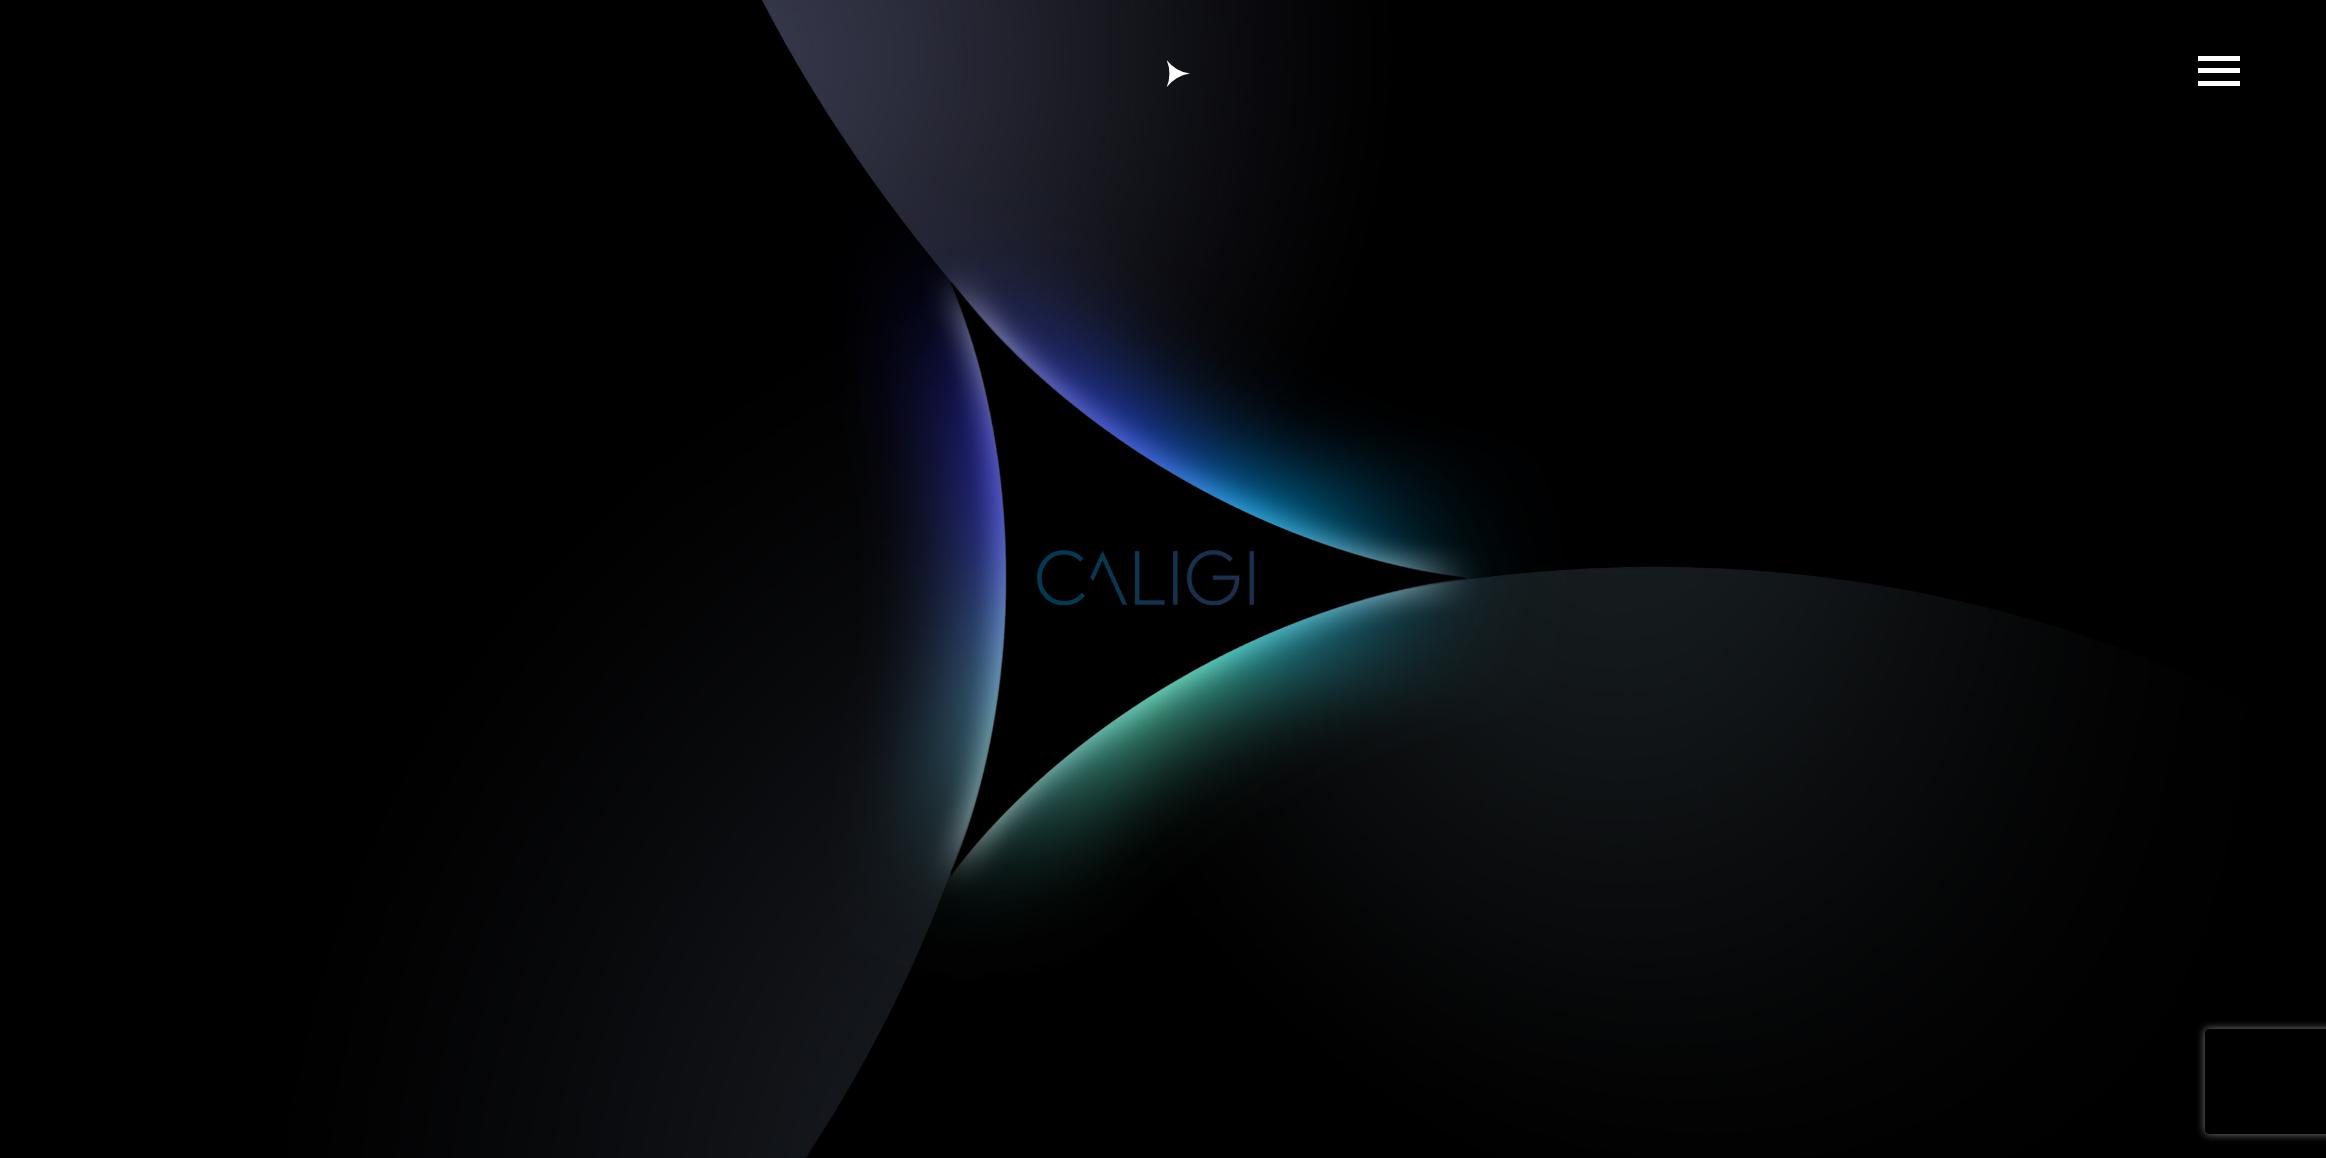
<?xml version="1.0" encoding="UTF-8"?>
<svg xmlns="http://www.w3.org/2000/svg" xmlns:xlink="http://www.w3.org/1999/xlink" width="2326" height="1158">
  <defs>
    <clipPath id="clip1"><path d="M 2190 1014 h 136 v 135 h -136 z m 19 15 h 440 c 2 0 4 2 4 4 v 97 c 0 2 -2 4 -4 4 h -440 c -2 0 -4 -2 -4 -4 v -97 c 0 -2 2 -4 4 -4 z" clip-rule="evenodd" /></clipPath>
  </defs>
  <rect width="100%" height="100%" fill="#ffffff" />
  <image x="0" y="0" width="2326" height="1158" xlink:href="image1.png" />
  <rect x="2198" y="68" width="42" height="5" fill="#ffffff" />
  <rect x="2198" y="56" width="42" height="5" fill="#ffffff" />
  <rect x="2198" y="81" width="42" height="5" fill="#ffffff" />
  <g clip-path="url(#clip1)">
    <rect x="2205" y="1029" width="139" height="105" rx="4" fill="#808080" filter="blur(4.5px)" />
  </g>
  <text x="1164" y="82" style="font-family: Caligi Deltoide; font-size: 28px; fill: #ffffff">z</text>
</svg>
